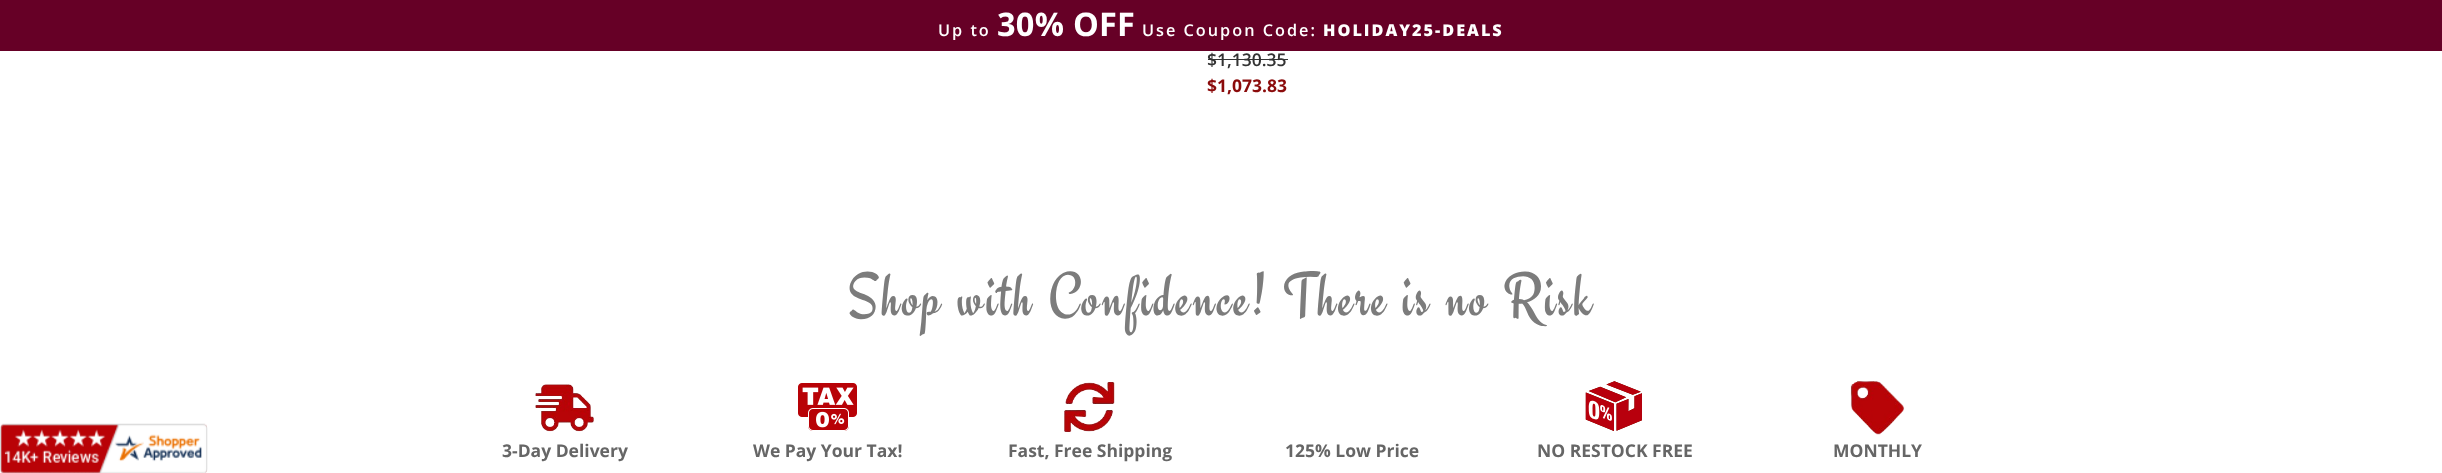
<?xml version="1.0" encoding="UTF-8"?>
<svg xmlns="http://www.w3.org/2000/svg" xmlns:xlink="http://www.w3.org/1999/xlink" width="2442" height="473">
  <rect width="100%" height="100%" fill="#ffffff" />
  <rect width="2442" height="51" fill="#660026" />
  <rect x="1208" y="59" width="80" height="1" fill="#333333" />
  <image x="0" y="423" width="208" height="50" xlink:href="image1.png" />
  <image x="535" y="384" width="59" height="48" xlink:href="image2.png" />
  <image x="798" y="383" width="59" height="48" xlink:href="image3.png" />
  <image x="1064" y="382" width="51" height="50" xlink:href="image4.png" />
  <image x="1585" y="381" width="57" height="50" xlink:href="image5.png" />
  <image x="1850" y="381" width="55" height="54" xlink:href="image6.png" />
  <text x="938" y="36" style="font-family: Open Sans; font-size: 16.25px; font-weight: 600; letter-spacing: 2px; fill: #ffffff">Up to</text>
  <text x="997" y="36" style="font-family: Open Sans; font-size: 32.5px; font-weight: bold; letter-spacing: 0.25px; fill: #ffffff">30% OFF</text>
  <text x="1142" y="36" style="font-family: Open Sans; font-size: 16.25px; font-weight: 600; letter-spacing: 2px; fill: #ffffff">Use Coupon Code:</text>
  <text x="1323" y="36" style="font-family: Open Sans; font-size: 16.25px; font-weight: 800; letter-spacing: 2px; fill: #ffffff">HOLIDAY25-DEALS</text>
  <text x="1207" y="66" style="font-family: Open Sans; font-size: 17.5px; font-weight: 600; fill: #333333">$1,130.35</text>
  <text x="1207" y="92" style="font-family: Open Sans; font-size: 17.5px; font-weight: bold; fill: #8b0b0b">$1,073.83</text>
  <text x="847" y="315" style="font-family: Engagement; font-size: 62.5px; letter-spacing: 2.5px; fill: #7c7c7c">Shop with Confidence! There is no Risk</text>
  <text x="502" y="457" style="font-family: Open Sans; font-size: 17.5px; font-weight: bold; fill: #666666">3-Day Delivery</text>
  <text x="753" y="457" style="font-family: Open Sans; font-size: 17.5px; font-weight: bold; fill: #666666">We Pay Your Tax!</text>
  <text x="1008" y="457" style="font-family: Open Sans; font-size: 17.5px; font-weight: bold; fill: #666666">Fast, Free Shipping</text>
  <text x="1285" y="457" style="font-family: Open Sans; font-size: 17.5px; font-weight: bold; fill: #666666">125% Low Price</text>
  <text x="1537" y="457" style="font-family: Open Sans; font-size: 17.5px; font-weight: bold; fill: #666666">NO RESTOCK FREE</text>
  <text x="1833" y="457" style="font-family: Open Sans; font-size: 17.5px; font-weight: bold; fill: #666666">MONTHLY</text>
</svg>
